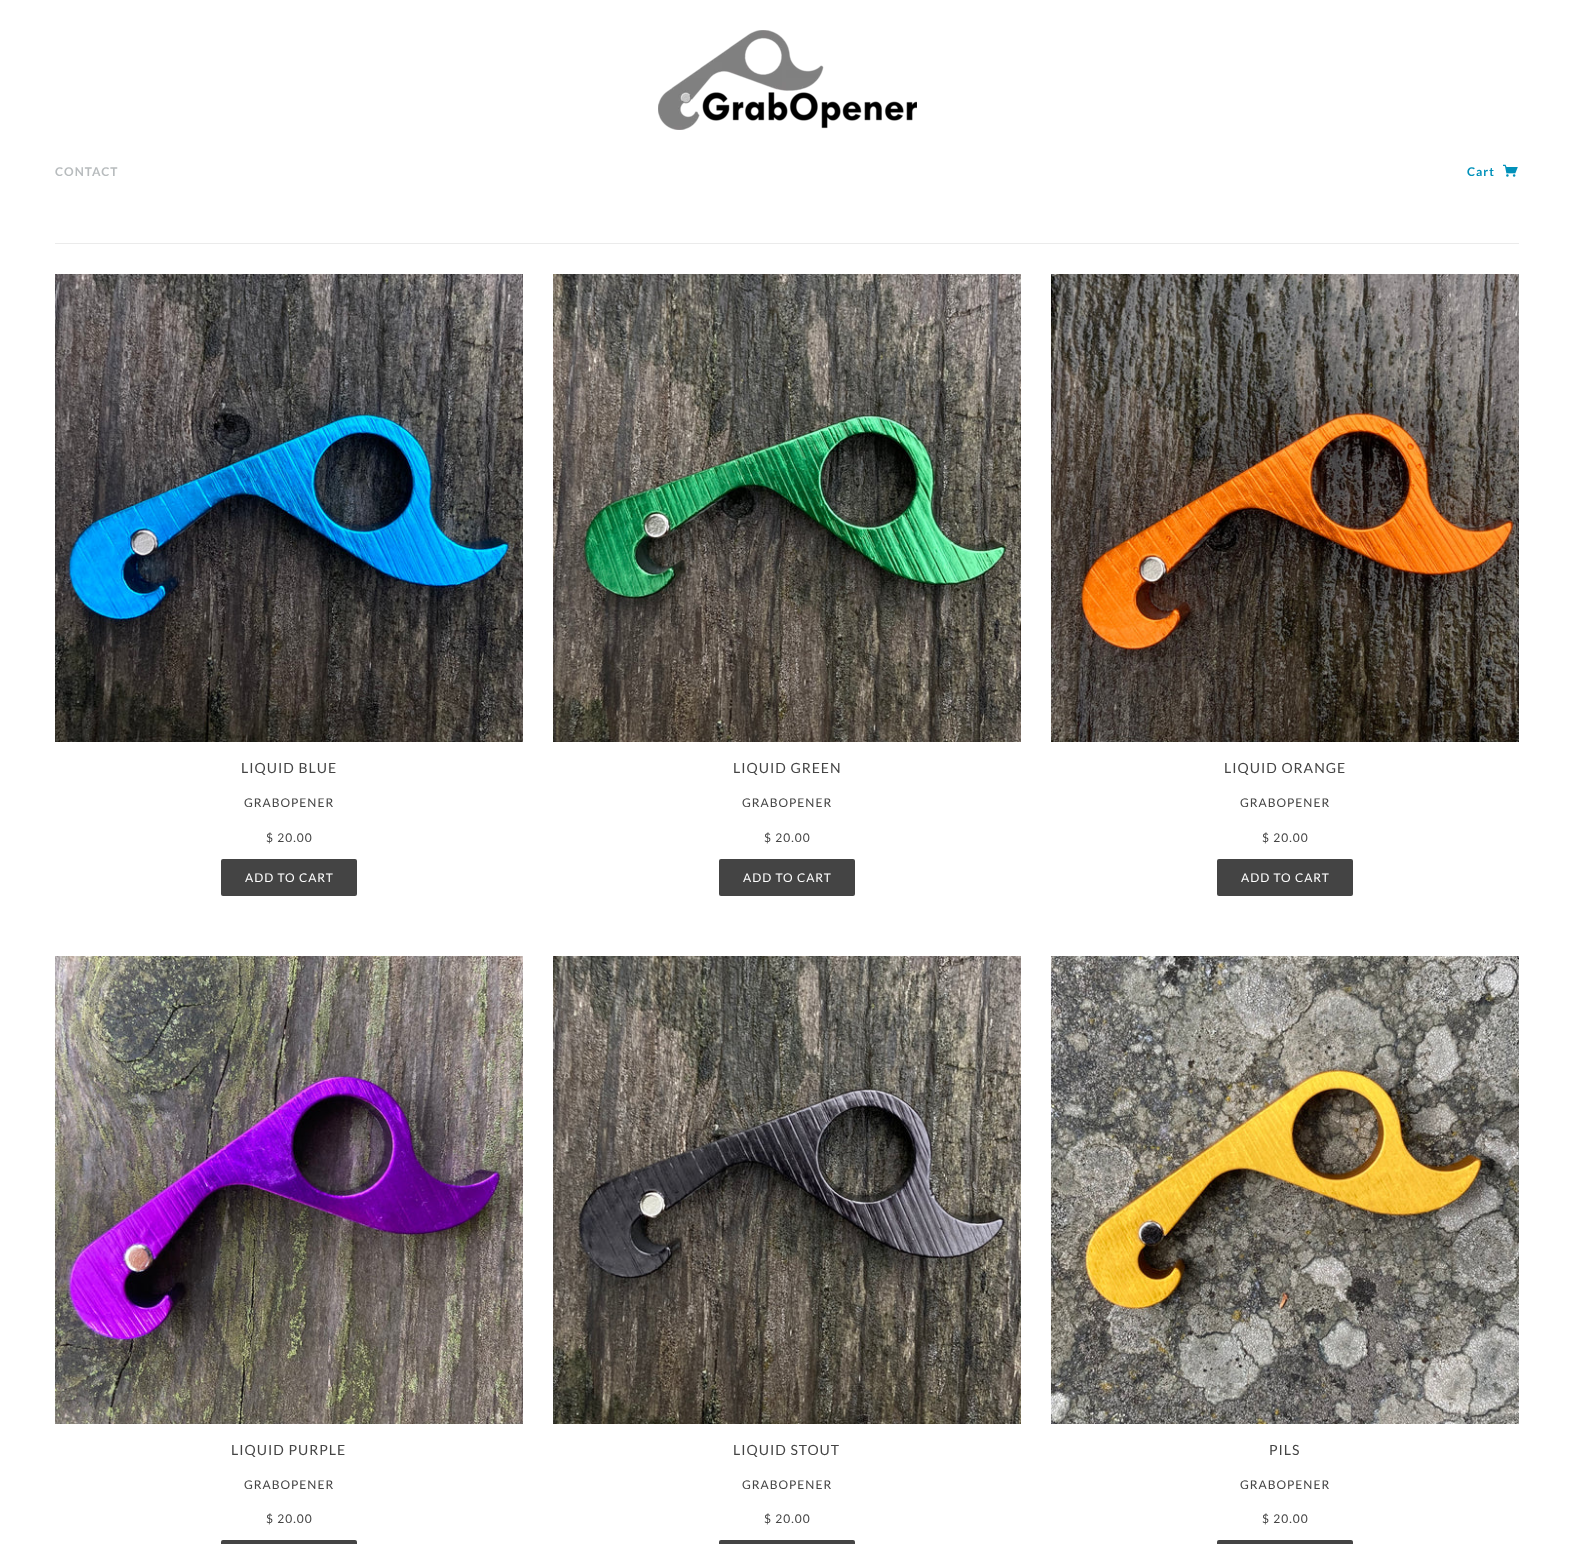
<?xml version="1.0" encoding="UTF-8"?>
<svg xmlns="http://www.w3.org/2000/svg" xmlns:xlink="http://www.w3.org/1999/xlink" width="1574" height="1544">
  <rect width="100%" height="100%" fill="#ffffff" />
  <image x="658" y="30" width="259" height="100" xlink:href="image1.png" />
  <image x="1503" y="164" width="15" height="13" xlink:href="image2.png" />
  <rect x="55" y="243" width="1464" height="1" fill="#ebebeb" />
  <image x="55" y="274" width="468" height="468" xlink:href="image3.png" />
  <rect x="221" y="859" width="136" height="37" rx="2" fill="#444444" />
  <image x="553" y="274" width="468" height="468" xlink:href="image4.png" />
  <rect x="719" y="859" width="136" height="37" rx="2" fill="#444444" />
  <image x="1051" y="274" width="468" height="468" xlink:href="image5.png" />
  <rect x="1217" y="859" width="136" height="37" rx="2" fill="#444444" />
  <image x="55" y="956" width="468" height="468" xlink:href="image6.png" />
  <rect x="221" y="1540" width="136" height="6" rx="2" fill="#444444" />
  <image x="553" y="956" width="468" height="468" xlink:href="image7.png" />
  <rect x="719" y="1540" width="136" height="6" rx="2" fill="#444444" />
  <image x="1051" y="956" width="468" height="468" xlink:href="image8.png" />
  <rect x="1217" y="1540" width="136" height="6" rx="2" fill="#444444" />
  <text x="55" y="176" style="font-family: Lato; font-size: 12px; font-weight: bold; letter-spacing: 1px; fill: #b8bcbe">CONTACT</text>
  <text x="1467" y="176" style="font-family: Lato; font-size: 12px; font-weight: bold; letter-spacing: 1px; fill: #0191ba">Cart</text>
  <text x="241" y="773" style="font-family: Lato; font-size: 14px; letter-spacing: 1px; fill: #444444">LIQUID BLUE</text>
  <text x="244" y="807" style="font-family: Lato; font-size: 12px; letter-spacing: 1px; fill: #444444">GRABOPENER</text>
  <text x="266" y="842" style="font-family: Lato; font-size: 12px; letter-spacing: 1px; fill: #444444">$ 20.00</text>
  <text x="245" y="882" style="font-family: Lato; font-size: 12px; letter-spacing: 1px; fill: #ffffff">ADD TO CART</text>
  <text x="733" y="773" style="font-family: Lato; font-size: 14px; letter-spacing: 1px; fill: #444444">LIQUID GREEN</text>
  <text x="742" y="807" style="font-family: Lato; font-size: 12px; letter-spacing: 1px; fill: #444444">GRABOPENER</text>
  <text x="764" y="842" style="font-family: Lato; font-size: 12px; letter-spacing: 1px; fill: #444444">$ 20.00</text>
  <text x="743" y="882" style="font-family: Lato; font-size: 12px; letter-spacing: 1px; fill: #ffffff">ADD TO CART</text>
  <text x="1224" y="773" style="font-family: Lato; font-size: 14px; letter-spacing: 1px; fill: #444444">LIQUID ORANGE</text>
  <text x="1240" y="807" style="font-family: Lato; font-size: 12px; letter-spacing: 1px; fill: #444444">GRABOPENER</text>
  <text x="1262" y="842" style="font-family: Lato; font-size: 12px; letter-spacing: 1px; fill: #444444">$ 20.00</text>
  <text x="1241" y="882" style="font-family: Lato; font-size: 12px; letter-spacing: 1px; fill: #ffffff">ADD TO CART</text>
  <text x="231" y="1455" style="font-family: Lato; font-size: 14px; letter-spacing: 1px; fill: #444444">LIQUID PURPLE</text>
  <text x="244" y="1489" style="font-family: Lato; font-size: 12px; letter-spacing: 1px; fill: #444444">GRABOPENER</text>
  <text x="266" y="1523" style="font-family: Lato; font-size: 12px; letter-spacing: 1px; fill: #444444">$ 20.00</text>
  <text x="733" y="1455" style="font-family: Lato; font-size: 14px; letter-spacing: 1px; fill: #444444">LIQUID STOUT</text>
  <text x="742" y="1489" style="font-family: Lato; font-size: 12px; letter-spacing: 1px; fill: #444444">GRABOPENER</text>
  <text x="764" y="1523" style="font-family: Lato; font-size: 12px; letter-spacing: 1px; fill: #444444">$ 20.00</text>
  <text x="1269" y="1455" style="font-family: Lato; font-size: 14px; letter-spacing: 1px; fill: #444444">PILS</text>
  <text x="1240" y="1489" style="font-family: Lato; font-size: 12px; letter-spacing: 1px; fill: #444444">GRABOPENER</text>
  <text x="1262" y="1523" style="font-family: Lato; font-size: 12px; letter-spacing: 1px; fill: #444444">$ 20.00</text>
</svg>
